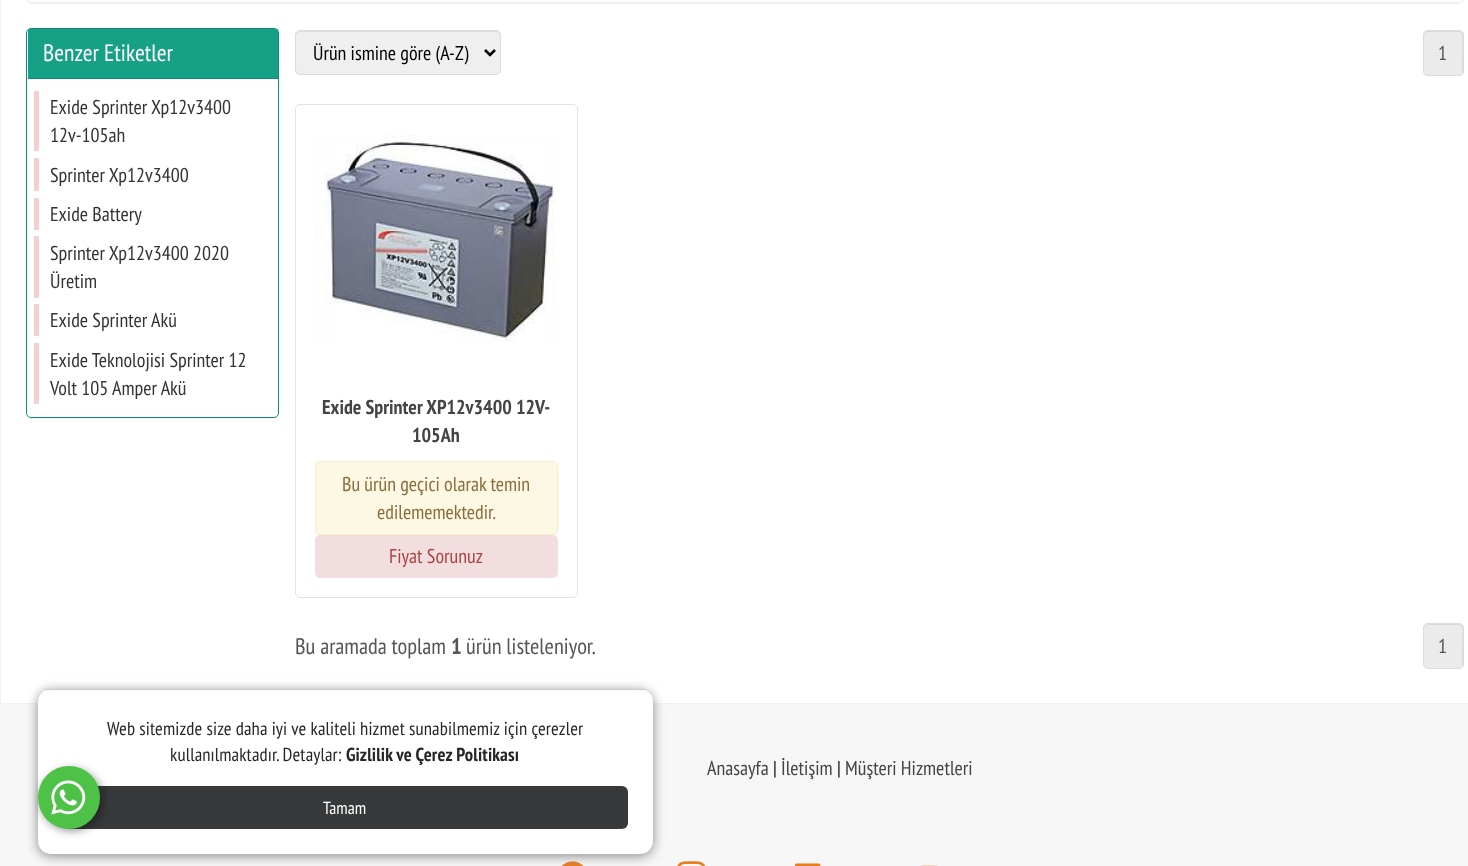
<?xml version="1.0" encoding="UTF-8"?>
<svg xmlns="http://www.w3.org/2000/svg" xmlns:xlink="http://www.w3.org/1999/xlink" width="1468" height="866">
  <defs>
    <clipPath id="clip1"><path d="M 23 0 h 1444 v 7 h -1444 z m 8 -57 h 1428 c 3 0 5 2 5 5 v 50 c 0 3 -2 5 -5 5 h -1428 c -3 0 -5 -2 -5 -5 v -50 c 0 -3 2 -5 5 -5 z" clip-rule="evenodd" /></clipPath>
    <clipPath id="clip2"><path d="M 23 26 h 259 v 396 h -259 z m 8 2 h 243 c 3 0 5 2 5 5 v 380 c 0 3 -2 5 -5 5 h -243 c -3 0 -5 -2 -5 -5 v -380 c 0 -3 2 -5 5 -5 z" clip-rule="evenodd" /></clipPath>
  </defs>
  <rect width="100%" height="100%" fill="#f7f7f7" />
  <rect x="1" width="1467" height="703" fill="#ffffff" />
  <rect width="1" height="703" fill="#f0f0f0" />
  <g clip-path="url(#clip1)">
    <rect x="26" y="-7" width="1438" height="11" rx="5" fill="#000000" fill-opacity="0.05" filter="blur(0.5px)" />
  </g>
  <rect x="26.5" y="-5.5" width="1437" height="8" rx="4.5" fill="none" stroke="#ececec" />
  <g clip-path="url(#clip2)">
    <rect x="26" y="29" width="253" height="390" rx="5" fill="#000000" fill-opacity="0.05" filter="blur(0.5px)" />
  </g>
  <rect x="26.5" y="28.5" width="252" height="389" rx="4.5" fill="none" stroke="#118c74" />
  <rect x="28" y="29" width="250" height="49" fill="#16a085" />
  <rect x="28" y="78" width="250" height="1" fill="#118c74" />
  <rect x="34" y="91" width="5" height="60" fill="#f1d1d1" />
  <rect x="34" y="158" width="5" height="33" fill="#f1d1d1" />
  <rect x="34" y="198" width="5" height="32" fill="#f1d1d1" />
  <rect x="34" y="236" width="5" height="62" fill="#f1d1d1" />
  <rect x="34" y="304" width="5" height="32" fill="#f1d1d1" />
  <rect x="34" y="343" width="5" height="61" fill="#f1d1d1" />
  <rect x="295" y="30" width="206" height="45" rx="5" fill="#efefef" />
  <path d="M 300 32 h 196 c 2 0 4 2 4 4 v -1 c 0 -2 -2 -4 -4 -4 h -196 c -2 0 -4 2 -4 4 v 1 c 0 -2 2 -4 4 -4 z" fill="#dddddd" />
  <rect x="295.5" y="30.5" width="205" height="44" rx="4.5" fill="none" stroke="#dddddd" />
  <path d="M 485 50 l 5 5 l 5 -5" fill="none" stroke="#000000" stroke-width="2.5" />
  <rect x="1423" y="30" width="41" height="46" rx="5" fill="#ebebeb" />
  <path d="M 1428 32 h 32 c 4 1 2 14 2 16 v 26 c 2 -2 1 -7 1 -9 v -12 c 0 -25 4 -22 -19 -22 h -11 c -4 0 -9 -1 -9 5 c 0 -2 1 -4 4 -4 z" fill="#d9d9d9" />
  <rect x="1423.5" y="30.5" width="40" height="45" rx="4.5" fill="none" stroke="#dddddd" />
  <rect x="295.5" y="104.5" width="282" height="493" rx="4.5" fill="none" stroke="#e3e3e3" />
  <image x="315" y="134" width="241" height="209" xlink:href="image1.png" />
  <rect x="315.5" y="461.5" width="242" height="73" rx="4.5" fill="#fcf8e3" stroke="#faebcc" />
  <rect x="315" y="535" width="243" height="43" rx="5" fill="#f2dede" />
  <rect x="1423" y="623" width="41" height="46" rx="5" fill="#ebebeb" />
  <path d="M 1428 625 h 32 c 4 1 2 14 2 16 v 26 c 2 -2 1 -7 1 -9 v -12 c 0 -25 4 -22 -19 -22 h -11 c -4 0 -9 -1 -9 5 c 0 -2 1 -4 4 -4 z" fill="#d9d9d9" />
  <rect x="1423.5" y="623.5" width="40" height="45" rx="4.5" fill="none" stroke="#dddddd" />
  <rect y="703" width="1468" height="1" fill="#f0f0f0" />
  <image x="561" y="861" width="23" height="5" xlink:href="image3.png" />
  <rect x="38" y="691" width="615" height="165" rx="13" fill="#888888" filter="blur(6px)" />
  <rect x="38" y="689" width="615" height="165" rx="13" fill="#ffffff" />
  <rect x="44" y="689" width="602" height="1" fill="#cccccc" />
  <rect x="63" y="786" width="565" height="43" rx="6" fill="#37393b" />
  <rect x="40" y="769" width="63" height="62" rx="31" fill="#000000" fill-opacity="0.4" filter="blur(4px)" />
  <rect x="38" y="766" width="62" height="63" rx="31" fill="#4dc247" />
  <image x="51" y="780" width="35" height="35" xlink:href="image2.png" />
  <image x="677" y="861" width="29" height="5" xlink:href="image4.png" />
  <image x="795" y="863" width="26" height="3" xlink:href="image5.png" />
  <image x="919" y="865" width="19" height="1" xlink:href="image6.png" />
  <text x="43" y="61" style="font-family: PT Sans Narrow; font-size: 23.75px; fill: #ffffff">Benzer Etiketler</text>
  <text x="50" y="114" style="font-family: PT Sans Narrow; font-size: 20px; fill: #333333">Exide Sprinter Xp12v3400</text>
  <text x="50" y="142" style="font-family: PT Sans Narrow; font-size: 20px; fill: #333333">12v-105ah</text>
  <text x="50" y="182" style="font-family: PT Sans Narrow; font-size: 20px; fill: #333333">Sprinter Xp12v3400</text>
  <text x="50" y="221" style="font-family: PT Sans Narrow; font-size: 20px; fill: #333333">Exide Battery</text>
  <text x="50" y="260" style="font-family: PT Sans Narrow; font-size: 20px; fill: #333333">Sprinter Xp12v3400 2020</text>
  <text x="50" y="288" style="font-family: PT Sans Narrow; font-size: 20px; fill: #333333">Üretim</text>
  <text x="50" y="327" style="font-family: PT Sans Narrow; font-size: 20px; fill: #333333">Exide Sprinter Akü</text>
  <text x="50" y="367" style="font-family: PT Sans Narrow; font-size: 20px; fill: #333333">Exide Teknolojisi Sprinter 12</text>
  <text x="50" y="395" style="font-family: PT Sans Narrow; font-size: 20px; fill: #333333">Volt 105 Amper Akü</text>
  <text x="313" y="60" style="font-family: PT Sans Narrow; font-size: 20px; fill: #000000">Ürün ismine göre (A-Z)</text>
  <text x="1438" y="60" style="font-family: PT Sans Narrow; font-size: 20px; fill: #555555">1</text>
  <text x="322" y="414" style="font-family: PT Sans Narrow; font-size: 20px; font-weight: bold; fill: #444444">Exide Sprinter XP12v3400 12V-</text>
  <text x="412" y="442" style="font-family: PT Sans Narrow; font-size: 20px; font-weight: bold; fill: #444444">105Ah</text>
  <text x="342" y="491" style="font-family: PT Sans Narrow; font-size: 20px; fill: #8a6d3b">Bu ürün geçici olarak temin</text>
  <text x="377" y="519" style="font-family: PT Sans Narrow; font-size: 20px; fill: #8a6d3b">edilememektedir.</text>
  <text x="389" y="563" style="font-family: PT Sans Narrow; font-size: 20px; fill: #a94442">Fiyat Sorunuz</text>
  <text x="295" y="654" style="font-family: PT Sans Narrow; font-size: 22.5px; fill: #555555">Bu aramada toplam</text>
  <text x="451" y="654" style="font-family: PT Sans Narrow; font-size: 22.5px; font-weight: bold; fill: #555555">1</text>
  <text x="466" y="654" style="font-family: PT Sans Narrow; font-size: 22.5px; fill: #555555">ürün listeleniyor.</text>
  <text x="1438" y="653" style="font-family: PT Sans Narrow; font-size: 20px; fill: #555555">1</text>
  <text x="107" y="735" style="font-family: PT Sans Narrow; font-size: 18.75px; letter-spacing: 0.12px; fill: #262626">Web sitemizde size daha iyi ve kaliteli hizmet sunabilmemiz için çerezler</text>
  <text x="170" y="761" style="font-family: PT Sans Narrow; font-size: 18.75px; letter-spacing: 0.12px; fill: #262626">kullanılmaktadır. Detaylar:</text>
  <text x="346" y="761" style="font-family: PT Sans Narrow; font-size: 18.75px; font-weight: bold; letter-spacing: 0.12px; fill: #262626">Gizlilik ve Çerez Politikası</text>
  <text x="323" y="814" style="font-family: PT Sans Narrow; font-size: 17.5px; fill: #ffffff">Tamam</text>
  <text x="707" y="775" style="font-family: PT Sans Narrow; font-size: 20px; fill: #444444">Anasayfa</text>
  <text x="773" y="775" style="font-family: PT Sans Narrow; font-size: 20px; fill: #000000">|</text>
  <text x="781" y="775" style="font-family: PT Sans Narrow; font-size: 20px; fill: #444444">İletişim</text>
  <text x="837" y="775" style="font-family: PT Sans Narrow; font-size: 20px; fill: #000000">|</text>
  <text x="845" y="775" style="font-family: PT Sans Narrow; font-size: 20px; fill: #444444">Müşteri Hizmetleri</text>
</svg>
